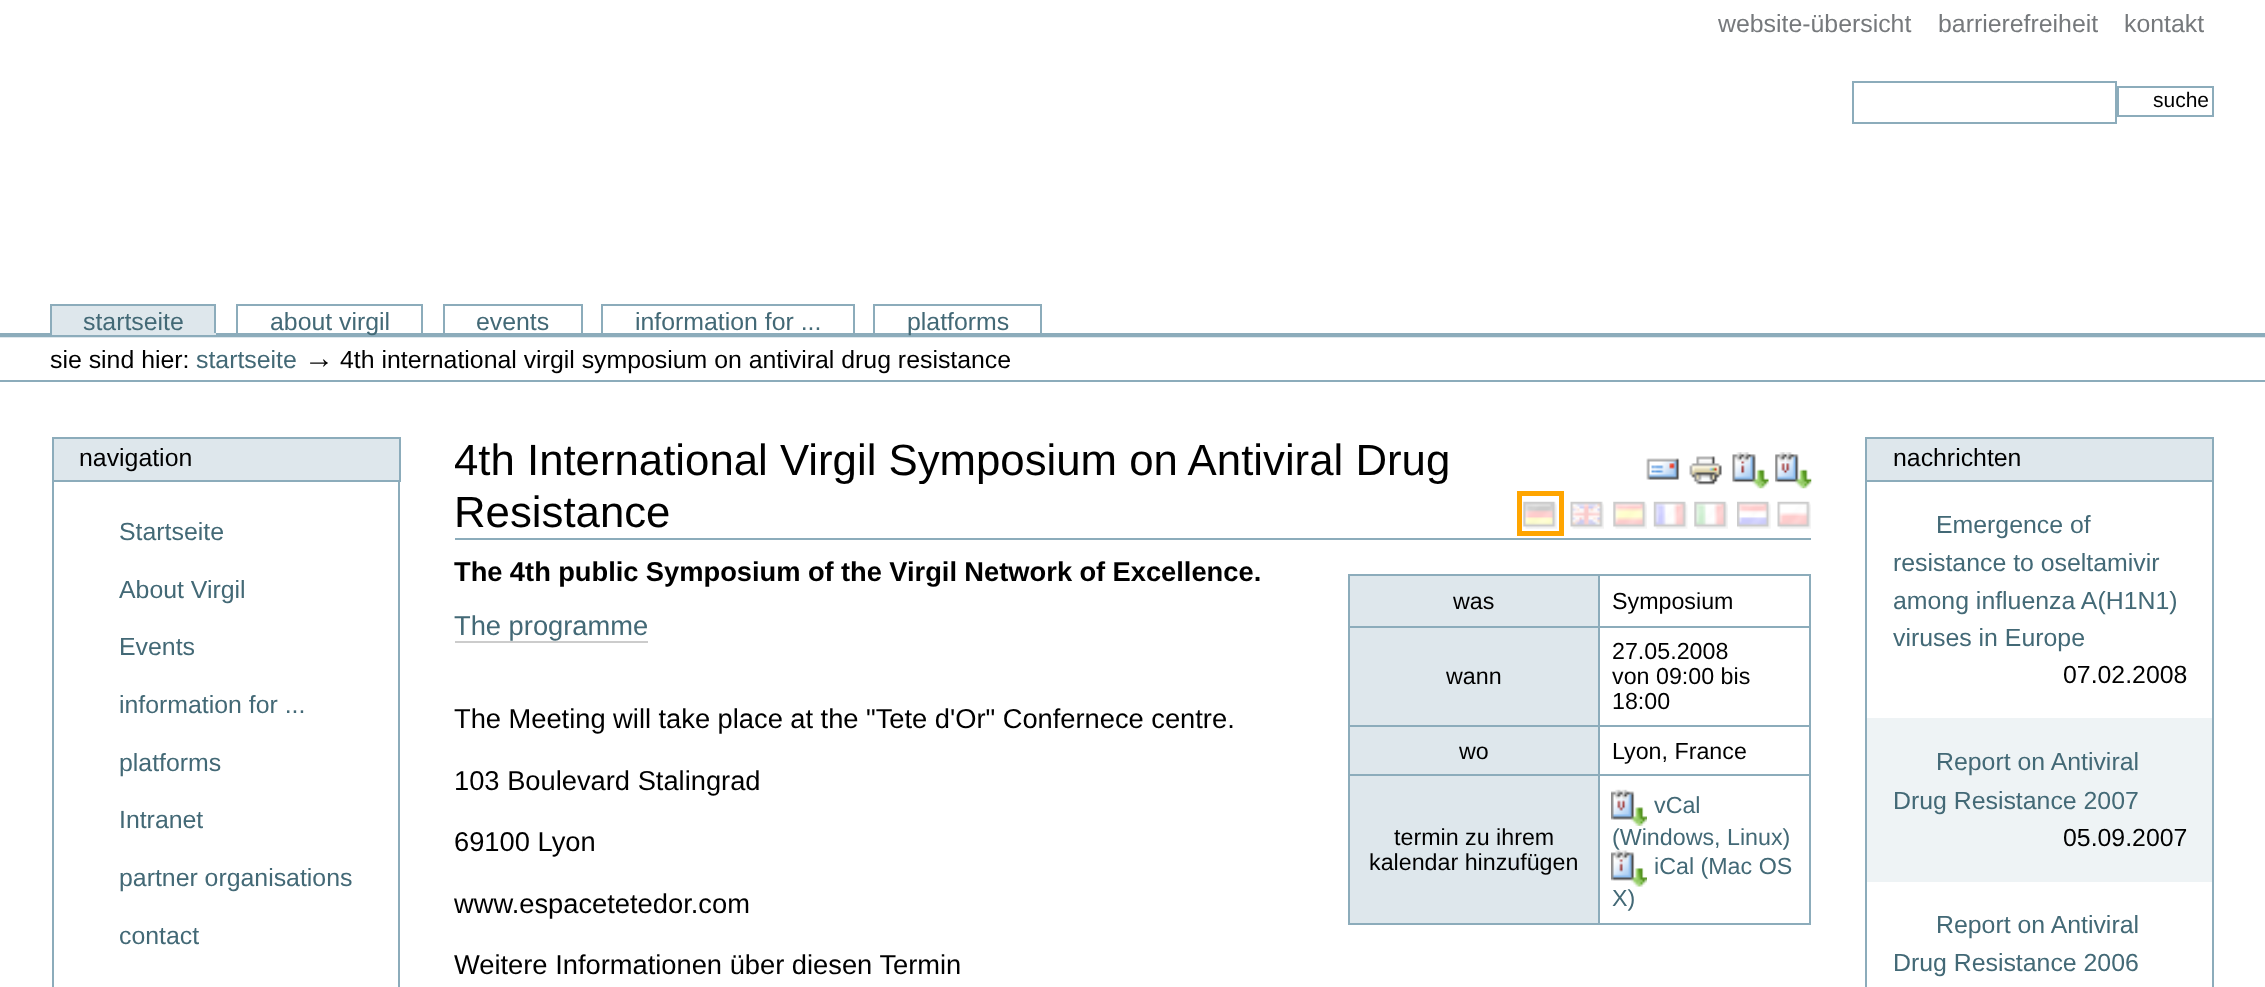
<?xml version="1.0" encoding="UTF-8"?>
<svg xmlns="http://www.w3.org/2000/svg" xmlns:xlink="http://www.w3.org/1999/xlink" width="2265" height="987">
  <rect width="100%" height="100%" fill="#ffffff" />
  <rect x="1853" y="82" width="263" height="41" fill="none" stroke="#8cacbb" stroke-width="2" />
  <rect x="2118" y="87" width="95" height="29" fill="none" stroke="#8cacbb" stroke-width="2" />
  <rect x="52" y="306" width="162" height="27" fill="#dee7ec" />
  <rect x="50" y="304" width="166" height="2" fill="#8cacbb" />
  <rect y="333" width="2265" height="4" fill="#8cacbb" />
  <rect x="214" y="304" width="2" height="31" fill="#8cacbb" />
  <rect x="50" y="333" width="166" height="2" fill="#dee7ec" />
  <rect x="50" y="304" width="2" height="31" fill="#8cacbb" />
  <rect x="236" y="304" width="187" height="2" fill="#8cacbb" />
  <rect x="421" y="304" width="2" height="29" fill="#8cacbb" />
  <rect x="236" y="304" width="2" height="29" fill="#8cacbb" />
  <rect x="443" y="304" width="140" height="2" fill="#8cacbb" />
  <rect x="581" y="304" width="2" height="29" fill="#8cacbb" />
  <rect x="443" y="304" width="2" height="29" fill="#8cacbb" />
  <rect x="601" y="304" width="254" height="2" fill="#8cacbb" />
  <rect x="853" y="304" width="2" height="29" fill="#8cacbb" />
  <rect x="601" y="304" width="2" height="29" fill="#8cacbb" />
  <rect x="873" y="304" width="169" height="2" fill="#8cacbb" />
  <rect x="1040" y="304" width="2" height="29" fill="#8cacbb" />
  <rect x="873" y="304" width="2" height="29" fill="#8cacbb" />
  <rect y="337" width="2265" height="1" fill="#dee7ec" />
  <rect y="380" width="2265" height="2" fill="#8cacbb" />
  <rect x="53" y="438" width="347" height="43" fill="#dee7ec" stroke="#8cacbb" stroke-width="2" />
  <rect x="398" y="482" width="2" height="505" fill="#8cacbb" />
  <rect x="52" y="482" width="2" height="505" fill="#8cacbb" />
  <rect x="455" y="538" width="1356" height="2" fill="#8cacbb" />
  <image x="1646" y="458" width="34" height="22" xlink:href="image1.png" />
  <image x="1689" y="456" width="33" height="29" xlink:href="image2.png" />
  <image x="1732" y="452" width="37" height="37" xlink:href="image3.png" />
  <image x="1775" y="452" width="37" height="37" xlink:href="image4.png" />
  <rect x="1519.5" y="493.5" width="42" height="40" fill="none" stroke="#ffa500" stroke-width="5" />
  <image x="1523" y="501" width="34" height="28" xlink:href="image5.png" />
  <image x="1570" y="501" width="34" height="28" xlink:href="image6.png" />
  <image x="1613" y="501" width="34" height="28" xlink:href="image7.png" />
  <image x="1653" y="501" width="35" height="28" xlink:href="image8.png" />
  <image x="1694" y="501" width="34" height="28" xlink:href="image9.png" />
  <image x="1737" y="501" width="34" height="28" xlink:href="image10.png" />
  <image x="1777" y="501" width="34" height="28" xlink:href="image11.png" />
  <rect x="455" y="641" width="193" height="2" fill="#cccccc" />
  <rect x="1348" y="923" width="463" height="2" fill="#8cacbb" />
  <rect x="1348" y="574" width="2" height="351" fill="#8cacbb" />
  <rect x="1350" y="576" width="248" height="50" fill="#dee7ec" />
  <rect x="1348" y="574" width="463" height="2" fill="#8cacbb" />
  <rect x="1348" y="626" width="463" height="2" fill="#8cacbb" />
  <rect x="1348" y="725" width="463" height="2" fill="#8cacbb" />
  <rect x="1348" y="774" width="463" height="2" fill="#8cacbb" />
  <rect x="1598" y="774" width="2" height="151" fill="#8cacbb" />
  <rect x="1598" y="725" width="2" height="51" fill="#8cacbb" />
  <rect x="1598" y="626" width="2" height="101" fill="#8cacbb" />
  <rect x="1598" y="574" width="2" height="54" fill="#8cacbb" />
  <rect x="1809" y="774" width="2" height="151" fill="#8cacbb" />
  <rect x="1809" y="725" width="2" height="51" fill="#8cacbb" />
  <rect x="1809" y="626" width="2" height="101" fill="#8cacbb" />
  <rect x="1809" y="574" width="2" height="54" fill="#8cacbb" />
  <rect x="1350" y="628" width="248" height="97" fill="#dee7ec" />
  <rect x="1350" y="727" width="248" height="47" fill="#dee7ec" />
  <rect x="1350" y="776" width="248" height="147" fill="#dee7ec" />
  <image x="1611" y="789" width="36" height="37" xlink:href="image12.png" />
  <image x="1611" y="850" width="36" height="37" xlink:href="image13.png" />
  <rect x="1866" y="438" width="347" height="43" fill="#dee7ec" stroke="#8cacbb" stroke-width="2" />
  <rect x="2212" y="482" width="2" height="505" fill="#8cacbb" />
  <rect x="1865" y="482" width="2" height="505" fill="#8cacbb" />
  <rect x="1867" y="718" width="345" height="164" fill="#eef3f5" />
  <text x="1718" y="32" style="font-family: Liberation Sans; font-size: 24.85px; fill: #76797c">website-übersicht</text>
  <text x="1938" y="32" style="font-family: Liberation Sans; font-size: 24.85px; fill: #76797c">barrierefreiheit</text>
  <text x="2124" y="32" style="font-family: Liberation Sans; font-size: 24.85px; fill: #76797c">kontakt</text>
  <text x="2153" y="107" style="font-family: Liberation Sans; font-size: 21px; fill: #000000">suche</text>
  <text x="83" y="330" style="font-family: Liberation Sans; font-size: 24.85px; fill: #436976">startseite</text>
  <text x="270" y="330" style="font-family: Liberation Sans; font-size: 24.85px; fill: #436976">about virgil</text>
  <text x="476" y="330" style="font-family: Liberation Sans; font-size: 24.85px; fill: #436976">events</text>
  <text x="635" y="330" style="font-family: Liberation Sans; font-size: 24.85px; fill: #436976">information for ...</text>
  <text x="907" y="330" style="font-family: Liberation Sans; font-size: 24.85px; fill: #436976">platforms</text>
  <text x="50" y="368" style="font-family: Liberation Sans; font-size: 24.85px; fill: #000000">sie sind hier:</text>
  <text x="196" y="368" style="font-family: Liberation Sans; font-size: 24.85px; fill: #436976">startseite</text>
  <text x="304" y="368" style="font-family: Liberation Sans; font-size: 30px; fill: #000000">→</text>
  <text x="340" y="368" style="font-family: Liberation Sans; font-size: 24.85px; fill: #000000">4th international virgil symposium on antiviral drug resistance</text>
  <text x="79" y="466" style="font-family: Liberation Sans; font-size: 24.85px; fill: #000000">navigation</text>
  <text x="119" y="540" style="font-family: Liberation Sans; font-size: 24.85px; fill: #436976">Startseite</text>
  <text x="119" y="598" style="font-family: Liberation Sans; font-size: 24.85px; fill: #436976">About Virgil</text>
  <text x="119" y="655" style="font-family: Liberation Sans; font-size: 24.85px; fill: #436976">Events</text>
  <text x="119" y="713" style="font-family: Liberation Sans; font-size: 24.85px; fill: #436976">information for ...</text>
  <text x="119" y="771" style="font-family: Liberation Sans; font-size: 24.85px; fill: #436976">platforms</text>
  <text x="119" y="828" style="font-family: Liberation Sans; font-size: 24.85px; fill: #436976">Intranet</text>
  <text x="119" y="886" style="font-family: Liberation Sans; font-size: 24.85px; fill: #436976">partner organisations</text>
  <text x="119" y="944" style="font-family: Liberation Sans; font-size: 24.85px; fill: #436976">contact</text>
  <text x="454" y="475" style="font-family: Liberation Sans; font-size: 43.75px; fill: #000000">4th International Virgil Symposium on Antiviral Drug</text>
  <text x="454" y="527" style="font-family: Liberation Sans; font-size: 43.75px; fill: #000000">Resistance</text>
  <text x="454" y="581" word-spacing="-0.25" style="font-family: Liberation Sans; font-size: 27.3px; font-weight: bold; fill: #000000">The 4th public Symposium of the Virgil Network of Excellence.</text>
  <text x="454" y="635" style="font-family: Liberation Sans; font-size: 27.3px; fill: #436976">The programme</text>
  <text x="454" y="728" word-spacing="-0.1" style="font-family: Liberation Sans; font-size: 27.3px; fill: #000000">The Meeting will take place at the "Tete d'Or" Confernece centre.</text>
  <text x="454" y="790" style="font-family: Liberation Sans; font-size: 27.3px; fill: #000000">103 Boulevard Stalingrad</text>
  <text x="454" y="851" style="font-family: Liberation Sans; font-size: 27.3px; fill: #000000">69100 Lyon</text>
  <text x="454" y="913" style="font-family: Liberation Sans; font-size: 27.3px; fill: #000000">www.espacetetedor.com</text>
  <text x="1453" y="609" style="font-family: Liberation Sans; font-size: 23.25px; fill: #000000">was</text>
  <text x="1612" y="609" style="font-family: Liberation Sans; font-size: 23.25px; fill: #000000">Symposium</text>
  <text x="1446" y="684" style="font-family: Liberation Sans; font-size: 23.25px; fill: #000000">wann</text>
  <text x="1612" y="659" style="font-family: Liberation Sans; font-size: 23.25px; fill: #000000">27.05.2008</text>
  <text x="1612" y="684" style="font-family: Liberation Sans; font-size: 23.25px; fill: #000000">von 09:00 bis</text>
  <text x="1612" y="709" style="font-family: Liberation Sans; font-size: 23.25px; fill: #000000">18:00</text>
  <text x="1459" y="759" style="font-family: Liberation Sans; font-size: 23.25px; fill: #000000">wo</text>
  <text x="1612" y="759" style="font-family: Liberation Sans; font-size: 23.25px; fill: #000000">Lyon, France</text>
  <text x="1394" y="845" style="font-family: Liberation Sans; font-size: 23.25px; fill: #000000">termin zu ihrem</text>
  <text x="1369" y="870" style="font-family: Liberation Sans; font-size: 23.25px; fill: #000000">kalendar hinzufügen</text>
  <text x="1654" y="813" style="font-family: Liberation Sans; font-size: 23.25px; fill: #436976">vCal</text>
  <text x="1612" y="845" style="font-family: Liberation Sans; font-size: 23.25px; fill: #436976">(Windows, Linux)</text>
  <text x="1654" y="874" style="font-family: Liberation Sans; font-size: 23.25px; fill: #436976">iCal (Mac OS</text>
  <text x="1612" y="906" style="font-family: Liberation Sans; font-size: 23.25px; fill: #436976">X)</text>
  <text x="454" y="974" style="font-family: Liberation Sans; font-size: 27.3px; fill: #000000">Weitere Informationen über diesen Termin</text>
  <text x="1893" y="466" style="font-family: Liberation Sans; font-size: 24.85px; fill: #000000">nachrichten</text>
  <text x="1936" y="533" style="font-family: Liberation Sans; font-size: 24.85px; fill: #436976">Emergence of</text>
  <text x="1893" y="571" style="font-family: Liberation Sans; font-size: 24.85px; fill: #436976">resistance to oseltamivir</text>
  <text x="1893" y="609" style="font-family: Liberation Sans; font-size: 24.85px; fill: #436976">among influenza A(H1N1)</text>
  <text x="1893" y="646" style="font-family: Liberation Sans; font-size: 24.85px; fill: #436976">viruses in Europe</text>
  <text x="2063" y="683" style="font-family: Liberation Sans; font-size: 24.85px; fill: #000000">07.02.2008</text>
  <text x="1936" y="770" style="font-family: Liberation Sans; font-size: 24.85px; fill: #436976">Report on Antiviral</text>
  <text x="1893" y="809" style="font-family: Liberation Sans; font-size: 24.85px; fill: #436976">Drug Resistance 2007</text>
  <text x="2063" y="846" style="font-family: Liberation Sans; font-size: 24.85px; fill: #000000">05.09.2007</text>
  <text x="1936" y="933" style="font-family: Liberation Sans; font-size: 24.85px; fill: #436976">Report on Antiviral</text>
  <text x="1893" y="971" style="font-family: Liberation Sans; font-size: 24.85px; fill: #436976">Drug Resistance 2006</text>
</svg>
